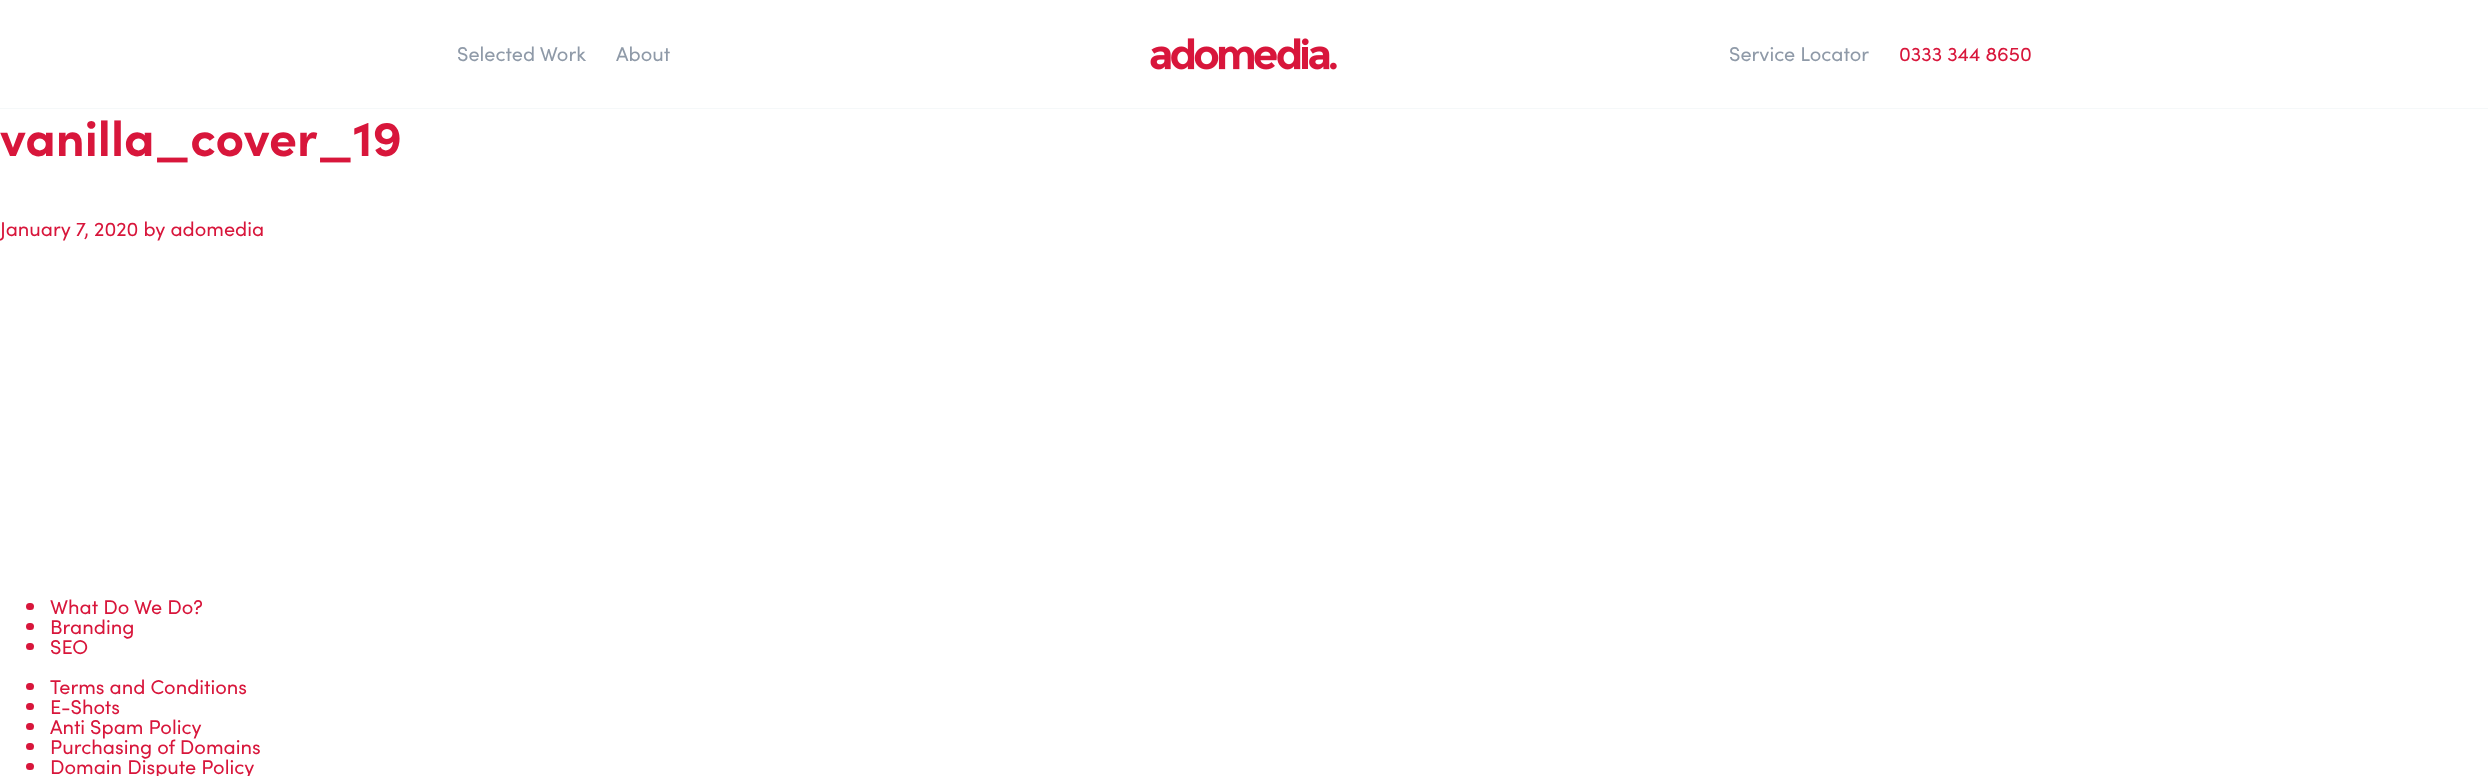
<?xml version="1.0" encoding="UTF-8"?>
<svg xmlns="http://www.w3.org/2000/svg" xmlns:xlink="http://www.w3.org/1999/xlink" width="2488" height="776">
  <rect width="100%" height="100%" fill="#ffffff" />
  <rect y="108" width="2488" height="1" fill="#f5f8f9" />
  <image x="1150" y="38" width="187" height="32" xlink:href="image1.png" />
  <rect x="26" y="603" width="8" height="7" rx="3.5" fill="#d8163b" />
  <rect x="26" y="623" width="8" height="7" rx="3.5" fill="#d8163b" />
  <rect x="26" y="643" width="8" height="7" rx="3.5" fill="#d8163b" />
  <rect x="26" y="683" width="8" height="7" rx="3.5" fill="#d8163b" />
  <rect x="26" y="703" width="8" height="7" rx="3.5" fill="#d8163b" />
  <rect x="26" y="723" width="8" height="7" rx="3.5" fill="#d8163b" />
  <rect x="26" y="743" width="8" height="7" rx="3.5" fill="#d8163b" />
  <rect x="26" y="763" width="8" height="7" rx="3.5" fill="#d8163b" />
  <text x="457" y="61" style="font-family: Sofia; font-size: 20px; fill: #8f9aa8">Selected Work</text>
  <text x="616" y="61" style="font-family: Sofia; font-size: 20px; fill: #8f9aa8">About</text>
  <text x="1729" y="61" style="font-family: Sofia; font-size: 20px; fill: #8f9aa8">Service Locator</text>
  <text x="1899" y="61" style="font-family: Sofia; font-size: 20px; fill: #d8163b">0333 344 8650</text>
  <text x="0" y="156" style="font-family: Sofia; font-size: 49.75px; font-weight: bold; fill: #d8163b">vanilla_cover_19</text>
  <text x="0" y="236" style="font-family: Sofia; font-size: 20px; fill: #d8163b">January 7, 2020 by adomedia</text>
  <text x="50" y="614" style="font-family: Sofia; font-size: 20px; fill: #d8163b">What Do We Do?</text>
  <text x="50" y="634" style="font-family: Sofia; font-size: 20px; fill: #d8163b">Branding</text>
  <text x="50" y="654" style="font-family: Sofia; font-size: 20px; fill: #d8163b">SEO</text>
  <text x="50" y="694" style="font-family: Sofia; font-size: 20px; fill: #d8163b">Terms and Conditions</text>
  <text x="50" y="714" style="font-family: Sofia; font-size: 20px; fill: #d8163b">E-Shots</text>
  <text x="50" y="734" style="font-family: Sofia; font-size: 20px; fill: #d8163b">Anti Spam Policy</text>
  <text x="50" y="754" style="font-family: Sofia; font-size: 20px; fill: #d8163b">Purchasing of Domains</text>
  <text x="50" y="774" style="font-family: Sofia; font-size: 20px; fill: #d8163b">Domain Dispute Policy</text>
</svg>
